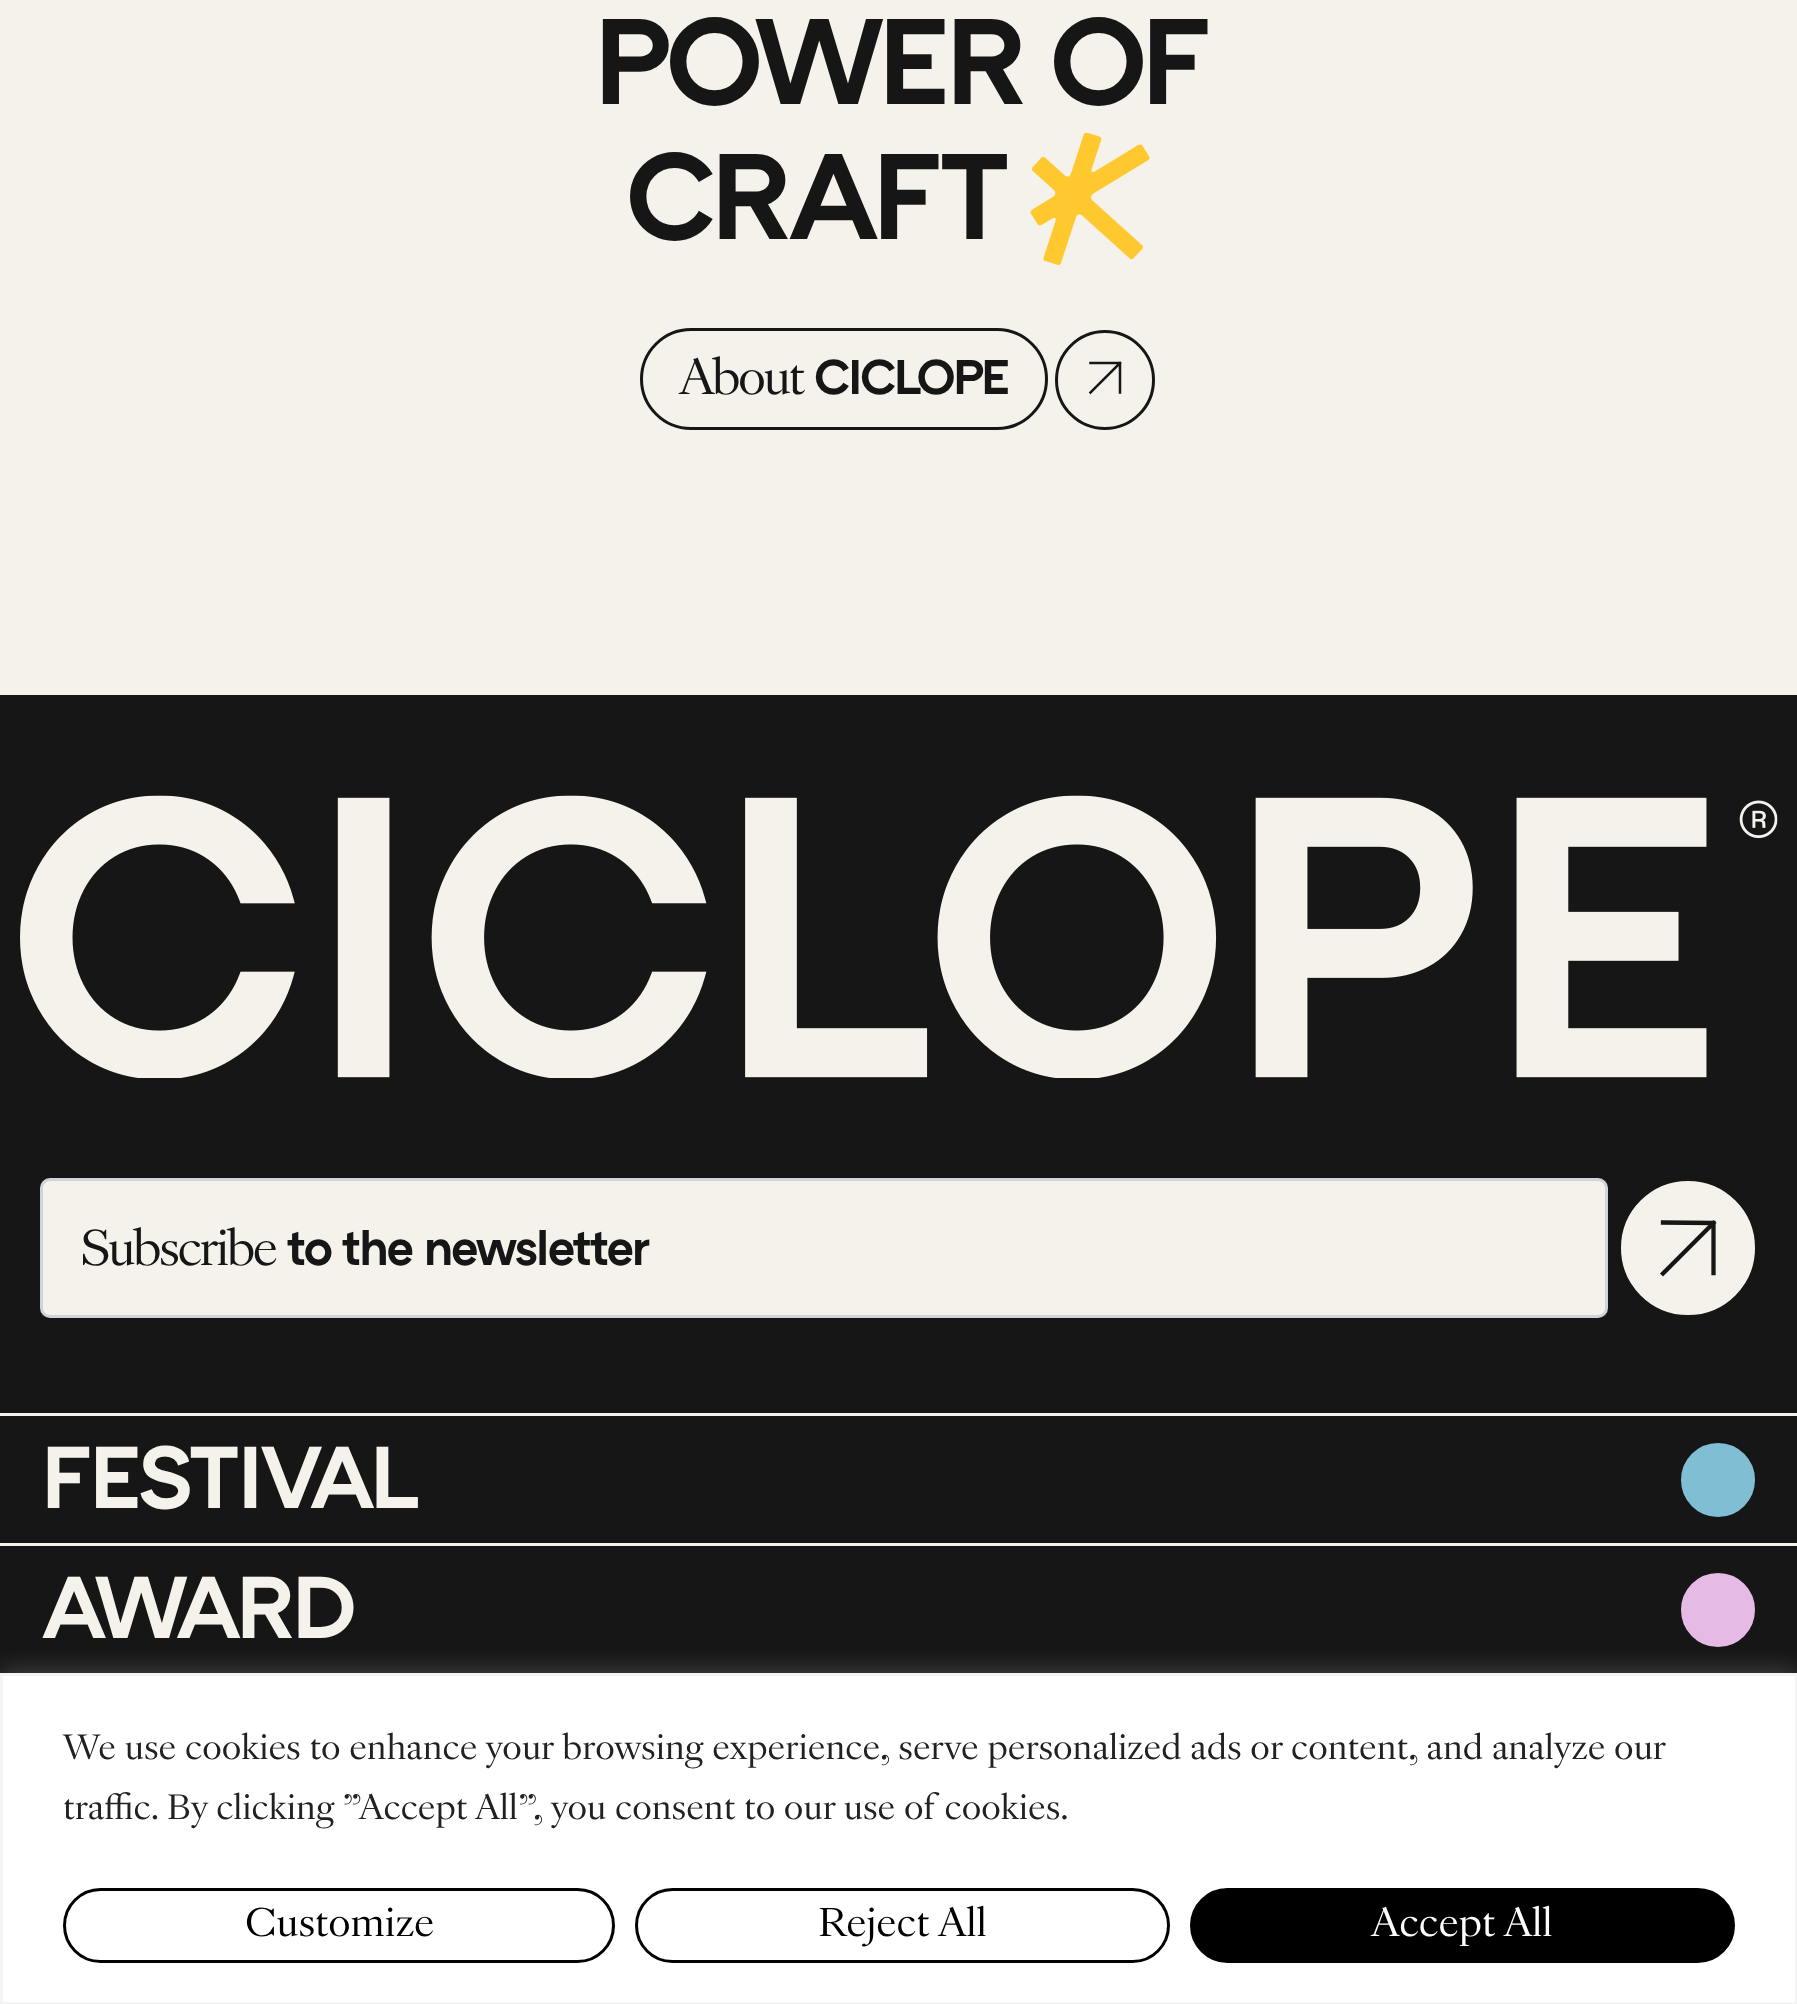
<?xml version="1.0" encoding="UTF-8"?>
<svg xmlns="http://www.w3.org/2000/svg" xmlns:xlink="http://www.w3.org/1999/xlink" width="1797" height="2004">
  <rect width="100%" height="100%" fill="#f4f2ea" />
  <image x="1030" y="133" width="120" height="132" xlink:href="image1.png" />
  <rect x="641.5" y="329.5" width="405" height="99" rx="49.5" fill="none" stroke="#161616" stroke-width="3" />
  <circle cx="1105" cy="380" r="48.5" fill="none" stroke="#161616" stroke-width="3" />
  <path d="M 1090.5 363 h 29.5 m 0 0 v 29.5 m 0 -29.5 l -29.5 29.5" fill="none" stroke="#161616" stroke-width="2.5" stroke-linecap="square" />
  <rect y="695" width="1797" height="978" fill="#161616" />
  <image x="20" y="795" width="1758" height="283" xlink:href="image2.png" />
  <rect x="41.5" y="1179.5" width="1565" height="137" rx="8.5" fill="#f4f2ea" stroke="#ced4da" stroke-width="3" />
  <circle cx="1688" cy="1248" r="68.5" fill="#f4f2ea" stroke="#161616" stroke-width="3" />
  <path d="M 1663 1222.5 l 50.5 0.5 m 0 0 v 50 m 0 -50 l -50.5 50.5" fill="none" stroke="#161616" stroke-width="4.3" stroke-linecap="square" />
  <rect y="1413" width="1797" height="3" fill="#f4f2ea" />
  <rect y="1543" width="1797" height="3" fill="#f4f2ea" />
  <circle cx="1718" cy="1480" r="38.5" fill="#80bed4" stroke="#161616" stroke-width="3" />
  <circle cx="1718" cy="1610" r="38.5" fill="#e5bbe6" stroke="#161616" stroke-width="3" />
  <rect y="1670" width="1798" height="333" fill="#acabab" fill-opacity="0.3" filter="blur(12.5px)" />
  <rect x="1.5" y="1674.5" width="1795" height="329" fill="#ffffff" stroke="#f4f4f4" stroke-width="3" />
  <rect x="64.5" y="1889.5" width="549" height="72" rx="36" fill="none" stroke="#000000" stroke-width="3" />
  <rect x="636.5" y="1889.5" width="532" height="72" rx="36" fill="none" stroke="#000000" stroke-width="3" />
  <rect x="1191.5" y="1889.5" width="542" height="72" rx="36" fill="#000000" stroke="#000000" stroke-width="3" />
  <text x="592" y="104" style="font-family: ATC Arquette; font-size: 125px; font-weight: 600; letter-spacing: -6.25px; fill: #161616">POWER OF</text>
  <text x="623" y="239" style="font-family: ATC Arquette; font-size: 125px; font-weight: 600; letter-spacing: -6.25px; fill: #161616">CRAFT</text>
  <text x="679" y="394" style="font-family: 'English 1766'; font-size: 50px; font-weight: 300; letter-spacing: -2.5px; fill: #161616">About</text>
  <text x="813" y="394" style="font-family: ATC Arquette; font-size: 50px; font-weight: 600; letter-spacing: -2.5px; fill: #161616">CICLOPE</text>
  <text x="80" y="1265" style="font-family: 'English 1766'; font-size: 50px; font-weight: 300; letter-spacing: -2.5px; fill: #161616">Subscribe</text>
  <text x="286" y="1265" style="font-family: ATC Arquette; font-size: 50px; font-weight: 600; letter-spacing: -2.5px; fill: #161616">to the newsletter</text>
  <text x="40" y="1508" style="font-family: ATC Arquette; font-size: 90px; font-weight: 600; letter-spacing: -4.5px; fill: #f4f2ea">FESTIVAL</text>
  <text x="40" y="1638" style="font-family: ATC Arquette; font-size: 90px; font-weight: 600; letter-spacing: -4.5px; fill: #f4f2ea">AWARD</text>
  <text x="63" y="1759" style="font-family: 'English 1766'; font-size: 35px; font-weight: 300; fill: #212121">We use cookies to enhance your browsing experience, serve personalized ads or content, and analyze our</text>
  <text x="63" y="1819" style="font-family: 'English 1766'; font-size: 35px; font-weight: 300; fill: #212121">traffic. By clicking "Accept All", you consent to our use of cookies.</text>
  <text x="245" y="1936" style="font-family: 'English 1766'; font-size: 40px; font-weight: 300; fill: #000000">Customize</text>
  <text x="818" y="1936" style="font-family: 'English 1766'; font-size: 40px; font-weight: 300; fill: #000000">Reject All</text>
  <text x="1371" y="1936" style="font-family: 'English 1766'; font-size: 40px; font-weight: 300; fill: #ffffff">Accept All</text>
</svg>
